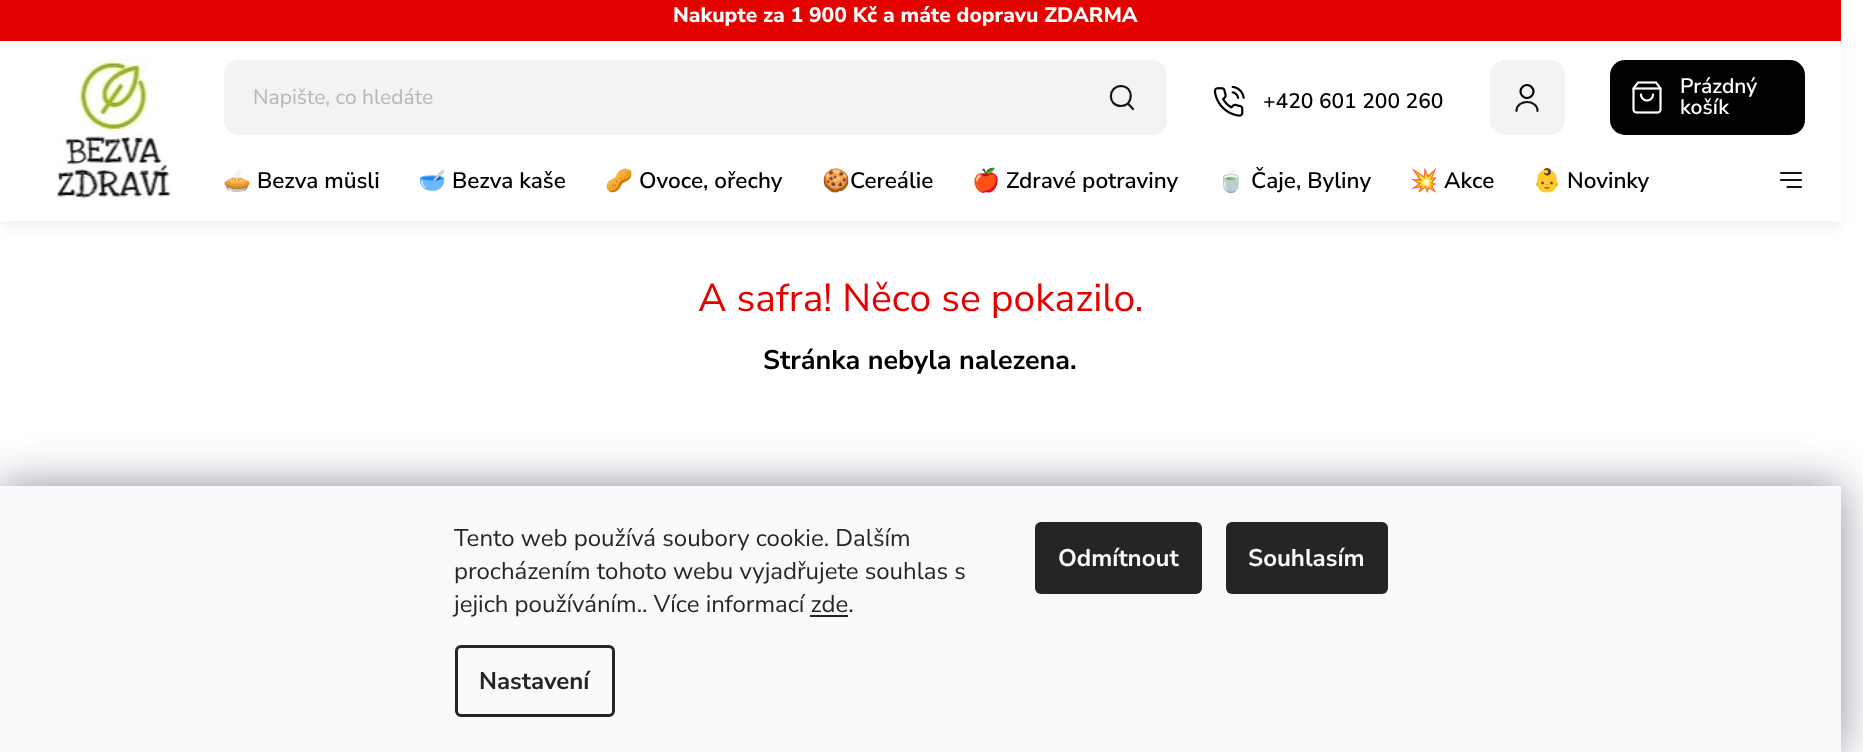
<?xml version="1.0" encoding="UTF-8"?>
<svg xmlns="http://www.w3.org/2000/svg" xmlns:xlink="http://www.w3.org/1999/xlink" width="1863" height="752">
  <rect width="100%" height="100%" fill="#ffffff" />
  <rect width="1841" height="41" fill="#e40200" />
  <rect y="47" width="1841" height="180" fill="#000000" fill-opacity="0.06" filter="blur(7.5px)" />
  <rect y="41" width="1841" height="180" fill="#ffffff" />
  <image x="56" y="58" width="115" height="141" xlink:href="image1.png" />
  <rect x="224" y="60" width="943" height="75" rx="15" fill="#f3f3f3" />
  <path d="M 1121 106 c 13 0 13 -20 0 -20 c -13.5 0.5 -13.5 20 0 20 z m 12 3 l -5 -5.5" fill="none" stroke="#141414" stroke-width="2.2" stroke-linecap="round" stroke-linejoin="round" />
  <rect x="1610" y="60" width="195" height="75" rx="15" fill="#000000" />
  <image x="1632" y="81" width="30" height="33" xlink:href="image2.png" />
  <path d="M 1781 180 h 20 m -20 -7 h 20 m -13.5 14 h 13.5" fill="none" stroke="#141414" stroke-width="2.2" stroke-linecap="round" stroke-linejoin="round" />
  <image x="1213" y="86" width="32" height="31" xlink:href="image3.png" />
  <rect x="1490" y="60" width="75" height="75" rx="15" fill="#f3f3f3" />
  <circle cx="1527" cy="91.5" r="6.5" fill="none" stroke="#000000" stroke-width="2.2" />
  <path d="M 1537.5 111 c 0 -12 -21 -12 -21 0" fill="none" stroke="#141414" stroke-width="2.2" stroke-linecap="round" />
  <rect y="486" width="1841" height="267" fill="#1b1939" fill-opacity="0.5" filter="blur(22.5px)" />
  <rect y="486" width="1841" height="266" fill="#f8fafb" />
  <rect x="810" y="615" width="38" height="2" fill="#252525" />
  <rect x="456.5" y="646.5" width="157" height="69" rx="4.5" fill="none" stroke="#252525" stroke-width="3" />
  <rect x="1035" y="522" width="167" height="72" rx="6" fill="#252525" />
  <rect x="1226" y="522" width="162" height="72" rx="6" fill="#252525" />
  <text x="673" y="22" style="font-family: Nunito Sans; font-size: 21px; font-weight: 800; fill: #ffffff">Nakupte za 1 900 Kč a máte dopravu ZDARMA</text>
  <text x="253" y="104" style="font-family: Nunito Sans; font-size: 21px; fill: #b6b6b6">Napište, co hledáte</text>
  <text x="1680" y="93" style="font-family: Nunito Sans; font-size: 21px; font-weight: 600; fill: #ffffff">Prázdný</text>
  <text x="1680" y="114" style="font-family: Nunito Sans; font-size: 21px; font-weight: 600; fill: #ffffff">košík</text>
  <text x="223" y="188" style="font-family: Noto Color Emoji; font-size: 22.5px; font-weight: bold; fill: #000000">🥧</text>
  <text x="257" y="188" style="font-family: Nunito Sans; font-size: 22.5px; font-weight: 600; fill: #000000">Bezva müsli</text>
  <text x="418" y="188" style="font-family: Noto Color Emoji; font-size: 22.5px; font-weight: bold; fill: #000000">🥣</text>
  <text x="452" y="188" style="font-family: Nunito Sans; font-size: 22.5px; font-weight: 600; fill: #000000">Bezva kaše</text>
  <text x="605" y="188" style="font-family: Noto Color Emoji; font-size: 22.5px; font-weight: bold; fill: #000000">🥜</text>
  <text x="639" y="188" style="font-family: Nunito Sans; font-size: 22.5px; font-weight: 600; fill: #000000">Ovoce, ořechy</text>
  <text x="822" y="188" style="font-family: Noto Color Emoji; font-size: 22.5px; font-weight: bold; fill: #000000">🍪</text>
  <text x="850" y="188" style="font-family: Nunito Sans; font-size: 22.5px; font-weight: 600; fill: #000000">Cereálie</text>
  <text x="972" y="188" style="font-family: Noto Color Emoji; font-size: 22.5px; font-weight: bold; fill: #000000">🍎</text>
  <text x="1006" y="188" style="font-family: Nunito Sans; font-size: 22.5px; font-weight: 600; fill: #000000">Zdravé potraviny</text>
  <text x="1217" y="188" style="font-family: Noto Color Emoji; font-size: 22.5px; font-weight: bold; fill: #000000">🍵</text>
  <text x="1251" y="188" style="font-family: Nunito Sans; font-size: 22.5px; font-weight: 600; fill: #000000">Čaje, Byliny</text>
  <text x="1410" y="188" style="font-family: Noto Color Emoji; font-size: 22.5px; font-weight: bold; fill: #000000">💥</text>
  <text x="1444" y="188" style="font-family: Nunito Sans; font-size: 22.5px; font-weight: 600; fill: #000000">Akce</text>
  <text x="1533" y="188" style="font-family: Noto Color Emoji; font-size: 22.5px; font-weight: bold; fill: #000000">👶</text>
  <text x="1567" y="188" style="font-family: Nunito Sans; font-size: 22.5px; font-weight: 600; fill: #000000">Novinky</text>
  <text x="1263" y="108" style="font-family: Nunito Sans; font-size: 21px; font-weight: 600; fill: #000000">+420 601 200 260</text>
  <text x="698" y="311" style="font-family: Nunito Sans; font-size: 39px; fill: #e40200">A safra! Něco se pokazilo.</text>
  <text x="763" y="369" style="font-family: Nunito Sans; font-size: 27px; font-weight: bold; fill: #000000">Stránka nebyla nalezena.</text>
  <text x="454" y="546" style="font-family: Nunito Sans; font-size: 24px; fill: #252525">Tento web používá soubory cookie. Dalším</text>
  <text x="454" y="579" style="font-family: Nunito Sans; font-size: 24px; fill: #252525">procházením tohoto webu vyjadřujete souhlas s</text>
  <text x="454" y="612" style="font-family: Nunito Sans; font-size: 24px; fill: #252525">jejich používáním.. Více informací zde.</text>
  <text x="479" y="689" style="font-family: Nunito Sans; font-size: 24px; font-weight: bold; fill: #252525">Nastavení</text>
  <text x="1058" y="566" style="font-family: Nunito Sans; font-size: 24px; font-weight: bold; fill: #f8fafb">Odmítnout</text>
  <text x="1248" y="566" style="font-family: Nunito Sans; font-size: 24px; font-weight: bold; fill: #f8fafb">Souhlasím</text>
</svg>
